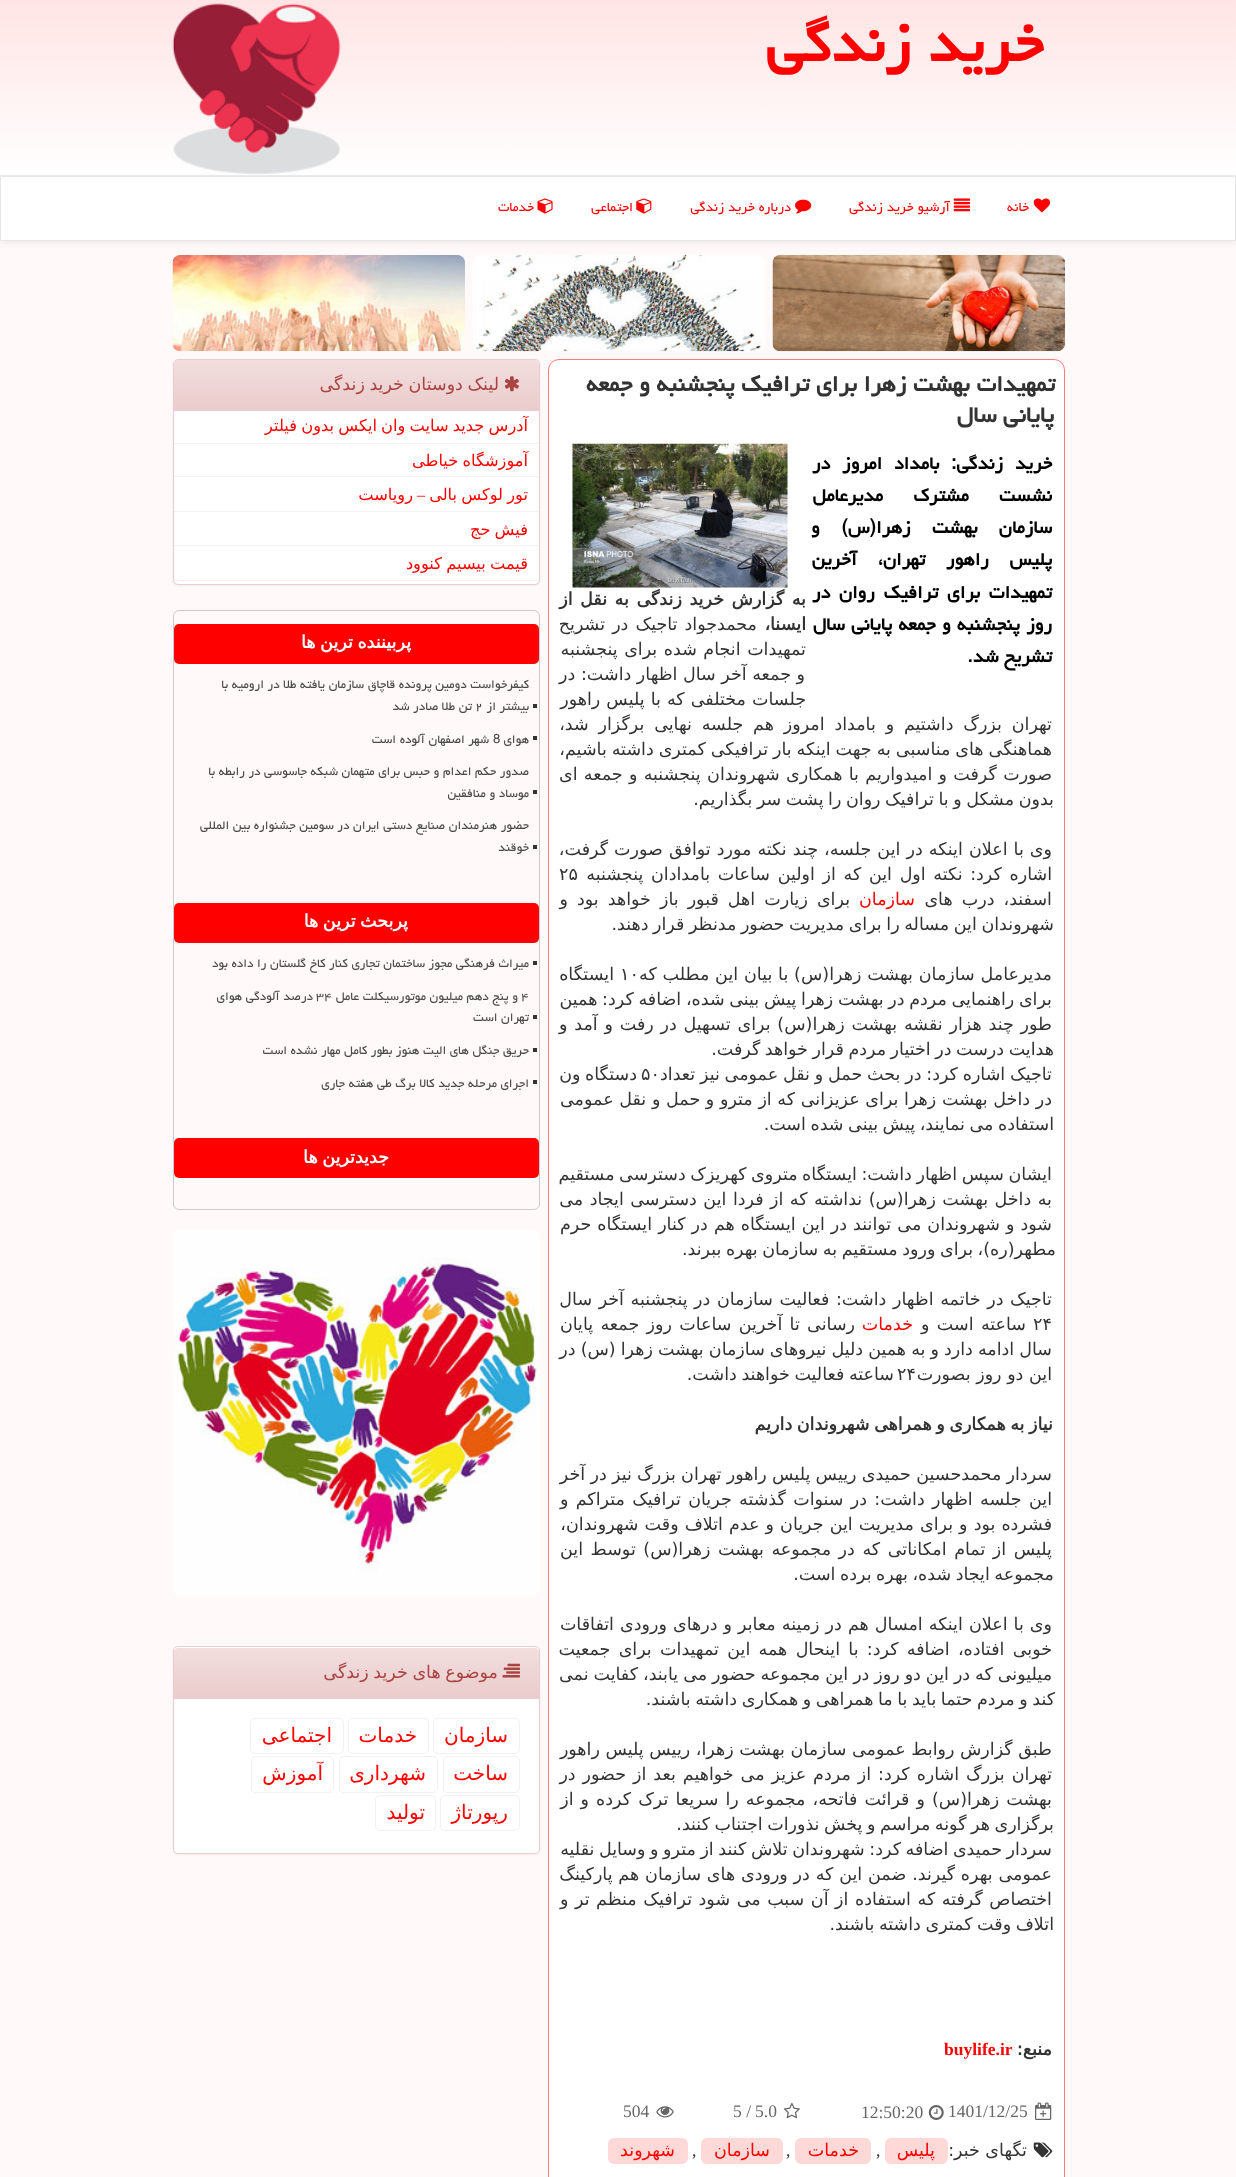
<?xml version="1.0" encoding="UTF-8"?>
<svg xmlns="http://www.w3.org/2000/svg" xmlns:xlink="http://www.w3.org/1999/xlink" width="1236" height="2177">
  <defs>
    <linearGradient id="g1" gradientUnits="userSpaceOnUse" x1="618" y1="0" x2="618" y2="175"><stop offset="0" stop-color="#ffe4e4" /><stop offset="1" stop-color="#ffffff" /></linearGradient>
    <linearGradient id="g2" gradientUnits="userSpaceOnUse" x1="356" y1="360" x2="356" y2="410"><stop offset="0" stop-color="#f2dede" /><stop offset="1" stop-color="#ebcccc" /></linearGradient>
    <linearGradient id="g3" gradientUnits="userSpaceOnUse" x1="356" y1="1648" x2="356" y2="1698"><stop offset="0" stop-color="#f2dede" /><stop offset="1" stop-color="#ebcccc" /></linearGradient>
  </defs>
  <rect width="100%" height="100%" fill="#fff9f9" />
  <rect width="1236" height="175" fill="url(#g1)" />
  <rect y="175" width="1236" height="1" fill="#eeeeee" />
  <image x="172" y="3" width="169" height="171" xlink:href="image1.png" />
  <rect y="178" width="1236" height="65" fill="#000000" fill-opacity="0.07" filter="blur(3px)" />
  <rect x="0.5" y="176.5" width="1235" height="64" fill="#ffffff" stroke="#e7e7e7" />
  <image x="1033" y="198" width="17" height="15" xlink:href="image2.png" />
  <image x="953" y="198" width="17" height="14" xlink:href="image3.png" />
  <image x="795" y="199" width="17" height="15" xlink:href="image4.png" />
  <image x="636" y="198" width="16" height="16" xlink:href="image5.png" />
  <image x="537" y="198" width="16" height="16" xlink:href="image6.png" />
  <image x="772" y="255" width="293" height="97" xlink:href="image7.png" />
  <image x="473" y="255" width="292" height="97" xlink:href="image8.png" />
  <image x="172" y="255" width="293" height="97" xlink:href="image9.png" />
  <rect x="548.5" y="359.5" width="516" height="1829" rx="10.5" fill="#ffffff" stroke="#ff7b7b" />
  <image x="572" y="443" width="216" height="145" xlink:href="image10.png" />
  <image x="1035" y="2102" width="17" height="18" xlink:href="image11.png" />
  <image x="928" y="2105" width="16" height="15" xlink:href="image12.png" />
  <image x="783" y="2102" width="17" height="17" xlink:href="image13.png" />
  <image x="656" y="2106" width="18" height="12" xlink:href="image14.png" />
  <image x="1033" y="2142" width="20" height="16" xlink:href="image15.png" />
  <rect x="885" y="2138" width="63" height="26" rx="6" fill="#ffd8d8" />
  <rect x="795" y="2138" width="76" height="26" rx="6" fill="#ffd8d8" />
  <rect x="701" y="2138" width="82" height="26" rx="6" fill="#ffd8d8" />
  <rect x="608" y="2138" width="80" height="26" rx="6" fill="#ffd8d8" />
  <rect x="173" y="360" width="367" height="226" rx="5" fill="#000000" fill-opacity="0.05" filter="blur(1px)" />
  <rect x="173.5" y="359.5" width="366" height="225" rx="4.5" fill="#ffffff" stroke="#ebccd1" />
  <path d="M 178 360 h 357 c 2 0 4 2 4 4 v 46 h -365 v -46 c 0 -2 2 -4 4 -4 z" fill="url(#g2)" />
  <rect x="174" y="410" width="365" height="1" fill="#ebccd1" />
  <image x="504" y="376" width="15" height="16" xlink:href="image16.png" />
  <rect x="174" y="443" width="365" height="1" fill="#f1f1f1" />
  <rect x="174" y="476" width="365" height="1" fill="#f1f1f1" />
  <rect x="174" y="511" width="365" height="1" fill="#f1f1f1" />
  <rect x="174" y="545" width="365" height="1" fill="#f1f1f1" />
  <rect x="174" y="580" width="365" height="1" fill="#f1f1f1" />
  <rect x="173.5" y="610.5" width="366" height="599" rx="5.5" fill="none" stroke="#cbcbcb" />
  <rect x="174" y="624" width="365" height="40" rx="5" fill="#ff0000" />
  <rect x="533" y="704" width="4" height="4" fill="#333333" />
  <rect x="533" y="736" width="4" height="4" fill="#333333" />
  <rect x="533" y="790" width="4" height="4" fill="#333333" />
  <rect x="533" y="845" width="4" height="4" fill="#333333" />
  <rect x="174" y="903" width="365" height="40" rx="5" fill="#ff0000" />
  <rect x="533" y="961" width="4" height="4" fill="#333333" />
  <rect x="533" y="1015" width="4" height="4" fill="#333333" />
  <rect x="533" y="1048" width="4" height="4" fill="#333333" />
  <rect x="533" y="1080" width="4" height="4" fill="#333333" />
  <rect x="174" y="1138" width="365" height="40" rx="5" fill="#ff0000" />
  <image x="172" y="1229" width="368" height="367" xlink:href="image17.png" />
  <rect x="173" y="1648" width="367" height="207" rx="5" fill="#000000" fill-opacity="0.05" filter="blur(1px)" />
  <rect x="173.5" y="1646.5" width="366" height="207" rx="4.5" fill="#ffffff" stroke="#ebccd1" />
  <path d="M 178 1648 h 357 c 2 0 4 2 4 4 v 46 h -365 v -46 c 0 -2 2 -4 4 -4 z" fill="url(#g3)" />
  <rect x="174" y="1698" width="365" height="1" fill="#ebccd1" />
  <image x="502" y="1663" width="18" height="15" xlink:href="image18.png" />
  <rect x="433.5" y="1718.5" width="86" height="35" rx="4.5" fill="none" stroke="#f1f1f1" />
  <rect x="348.5" y="1718.5" width="80" height="35" rx="4.5" fill="none" stroke="#f1f1f1" />
  <rect x="250.5" y="1718.5" width="93" height="35" rx="4.5" fill="none" stroke="#f1f1f1" />
  <rect x="443.5" y="1756.5" width="76" height="36" rx="4.5" fill="none" stroke="#f1f1f1" />
  <rect x="339.5" y="1756.5" width="98" height="36" rx="4.5" fill="none" stroke="#f1f1f1" />
  <rect x="251.5" y="1756.5" width="82" height="36" rx="4.5" fill="none" stroke="#f1f1f1" />
  <rect x="440.5" y="1795.5" width="79" height="35" rx="4.5" fill="none" stroke="#f1f1f1" />
  <rect x="375.5" y="1795.5" width="60" height="35" rx="4.5" fill="none" stroke="#f1f1f1" />
  <text x="1043" y="61" style="font-family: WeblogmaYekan; font-size: 70px; font-weight: bold; direction: rtl; fill: #ff0000">خرید زندگی</text>
  <text x="1029" y="211" style="font-family: WeblogmaYekan; font-size: 16.25px; direction: rtl; fill: #ff0000">خانه</text>
  <text x="950" y="211" style="font-family: WeblogmaYekan; font-size: 16.25px; direction: rtl; fill: #ff0000">آرشیو خرید زندگی</text>
  <text x="791" y="211" style="font-family: WeblogmaYekan; font-size: 16.25px; direction: rtl; fill: #ff0000">درباره خرید زندگی</text>
  <text x="633" y="211" style="font-family: WeblogmaYekan; font-size: 16.25px; direction: rtl; fill: #ff0000">اجتماعی</text>
  <text x="534" y="211" style="font-family: WeblogmaYekan; font-size: 16.25px; direction: rtl; fill: #ff0000">خدمات</text>
  <text x="1055" y="391" style="font-family: WeblogmaYekan; font-size: 28px; font-weight: bold; direction: rtl; fill: #333333">تمهیدات بهشت زهرا برای ترافیک پنجشنبه و جمعه</text>
  <text x="1054" y="422" style="font-family: WeblogmaYekan; font-size: 28px; font-weight: bold; direction: rtl; fill: #333333">پایانی سال</text>
  <text x="1052" y="469" word-spacing="6.5" style="font-family: WeblogmaYekan; font-size: 22.5px; font-weight: bold; direction: rtl; fill: #000000">خرید زندگی: بامداد امروز در</text>
  <text x="1052" y="501" word-spacing="25" style="font-family: WeblogmaYekan; font-size: 22.5px; font-weight: bold; direction: rtl; fill: #000000">نشست مشترک مدیرعامل</text>
  <text x="1052" y="533" word-spacing="16" style="font-family: WeblogmaYekan; font-size: 22.5px; font-weight: bold; direction: rtl; fill: #000000">سازمان بهشت زهرا(س) و</text>
  <text x="1052" y="565" word-spacing="15.5" style="font-family: WeblogmaYekan; font-size: 22.5px; font-weight: bold; direction: rtl; fill: #000000">پلیس راهور تهران، آخرین</text>
  <text x="1052" y="598" word-spacing="3.5" style="font-family: WeblogmaYekan; font-size: 22.5px; font-weight: bold; direction: rtl; fill: #000000">تمهیدات برای ترافیک روان در</text>
  <text x="1052" y="630" word-spacing="1" style="font-family: WeblogmaYekan; font-size: 22.5px; font-weight: bold; direction: rtl; fill: #000000">روز پنجشنبه و جمعه پایانی سال</text>
  <text x="1052" y="662" style="font-family: WeblogmaYekan; font-size: 22.5px; font-weight: bold; direction: rtl; fill: #000000">تشریح شد.</text>
  <text x="806" y="605" word-spacing="2" style="font-family: DejaVu Sans; font-size: 17.5px; font-weight: bold; direction: rtl; fill: #333333">به گزارش خرید زندگی به نقل از</text>
  <text x="806" y="630" style="font-family: DejaVu Sans; font-size: 17.5px; font-weight: bold; direction: rtl; fill: #333333">ایسنا،</text>
  <text x="757" y="630" word-spacing="1.5" style="font-family: DejaVu Sans; font-size: 17.5px; direction: rtl; fill: #333333">محمدجواد تاجیک در تشریح</text>
  <text x="806" y="655" word-spacing="1" style="font-family: DejaVu Sans; font-size: 17.5px; direction: rtl; fill: #333333">تمهیدات انجام شده برای پنجشنبه</text>
  <text x="805" y="680" style="font-family: DejaVu Sans; font-size: 17.5px; direction: rtl; fill: #333333">و جمعه آخر سال اظهار داشت: در</text>
  <text x="806" y="705" word-spacing="0.5" style="font-family: DejaVu Sans; font-size: 17.5px; direction: rtl; fill: #333333">جلسات مختلفی که با پلیس راهور</text>
  <text x="1052" y="730" word-spacing="4.25" style="font-family: DejaVu Sans; font-size: 17.5px; direction: rtl; fill: #333333">تهران بزرگ داشتیم و بامداد امروز هم جلسه نهایی برگزار شد،</text>
  <text x="1052" y="755" word-spacing="-0.6" style="font-family: DejaVu Sans; font-size: 17.5px; direction: rtl; fill: #333333">هماهنگی های مناسبی به جهت اینکه بار ترافیکی کمتری داشته باشیم،</text>
  <text x="1052" y="780" word-spacing="0.75" style="font-family: DejaVu Sans; font-size: 17.5px; direction: rtl; fill: #333333">صورت گرفت و امیدواریم با همکاری شهروندان پنجشنبه و جمعه ای</text>
  <text x="1054" y="805" word-spacing="-1" style="font-family: DejaVu Sans; font-size: 17.5px; direction: rtl; fill: #333333">بدون مشکل و با ترافیک روان را پشت سر بگذاریم.</text>
  <text x="1052" y="855" word-spacing="0.5" style="font-family: DejaVu Sans; font-size: 17.5px; direction: rtl; fill: #333333">وی با اعلان اینکه در این جلسه، چند نکته مورد توافق صورت گرفت،</text>
  <text x="1052" y="880" word-spacing="2.1" style="font-family: DejaVu Sans; font-size: 17.5px; direction: rtl; fill: #333333">اشاره کرد: نکته اول این که از اولین ساعات بامدادان پنجشنبه</text>
  <text x="559" y="880" style="font-family: DejaVu Sans; font-size: 17.5px; fill: #333333">۲۵</text>
  <text x="1052" y="905" word-spacing="3.5" style="font-family: DejaVu Sans; font-size: 17.5px; direction: rtl; fill: #333333">اسفند، درب های</text>
  <text x="915" y="905" style="font-family: DejaVu Sans; font-size: 17.5px; direction: rtl; fill: #ff0000">سازمان</text>
  <text x="850" y="905" word-spacing="3.5" style="font-family: DejaVu Sans; font-size: 17.5px; direction: rtl; fill: #333333">برای زیارت اهل قبور باز خواهد بود و</text>
  <text x="1054" y="930" word-spacing="-1" style="font-family: DejaVu Sans; font-size: 17.5px; direction: rtl; fill: #333333">شهروندان این مساله را برای مدیریت حضور مدنظر قرار دهند.</text>
  <text x="1052" y="980" word-spacing="0.25" style="font-family: DejaVu Sans; font-size: 17.5px; direction: rtl; fill: #333333">مدیرعامل سازمان بهشت زهرا(س) با بیان این مطلب که</text>
  <text x="620" y="980" style="font-family: DejaVu Sans; font-size: 17.5px; fill: #333333">۱۰</text>
  <text x="614" y="980" style="font-family: DejaVu Sans; font-size: 17.5px; direction: rtl; fill: #333333">ایستگاه</text>
  <text x="1052" y="1005" word-spacing="-0.9" style="font-family: DejaVu Sans; font-size: 17.5px; direction: rtl; fill: #333333">برای راهنمایی مردم در بهشت زهرا پیش بینی شده، اضافه کرد: همین</text>
  <text x="1052" y="1030" word-spacing="1.25" style="font-family: DejaVu Sans; font-size: 17.5px; direction: rtl; fill: #333333">طور چند هزار نقشه بهشت زهرا(س) برای تسهیل در رفت و آمد و</text>
  <text x="1054" y="1055" word-spacing="-1" style="font-family: DejaVu Sans; font-size: 17.5px; direction: rtl; fill: #333333">هدایت درست در اختیار مردم قرار خواهد گرفت.</text>
  <text x="1052" y="1080" word-spacing="-0.75" style="font-family: DejaVu Sans; font-size: 17.5px; direction: rtl; fill: #333333">تاجیک اشاره کرد: در بحث حمل و نقل عمومی نیز تعداد</text>
  <text x="641" y="1080" style="font-family: DejaVu Sans; font-size: 17.5px; fill: #333333">۵۰</text>
  <text x="637" y="1080" word-spacing="-1" style="font-family: DejaVu Sans; font-size: 17.5px; direction: rtl; fill: #333333">دستگاه ون</text>
  <text x="1052" y="1105" word-spacing="0.1" style="font-family: DejaVu Sans; font-size: 17.5px; direction: rtl; fill: #333333">در داخل بهشت زهرا برای عزیزانی که از مترو و حمل و نقل عمومی</text>
  <text x="1054" y="1130" word-spacing="-1" style="font-family: DejaVu Sans; font-size: 17.5px; direction: rtl; fill: #333333">استفاده می نمایند، پیش بینی شده است.</text>
  <text x="1052" y="1180" word-spacing="-1" style="font-family: DejaVu Sans; font-size: 17.5px; direction: rtl; fill: #333333">ایشان سپس اظهار داشت: ایستگاه متروی کهریزک دسترسی مستقیم</text>
  <text x="1052" y="1205" word-spacing="0.9" style="font-family: DejaVu Sans; font-size: 17.5px; direction: rtl; fill: #333333">به داخل بهشت زهرا(س) نداشته که از فردا این دسترسی ایجاد می</text>
  <text x="1052" y="1230" word-spacing="0.5" style="font-family: DejaVu Sans; font-size: 17.5px; direction: rtl; fill: #333333">شود و شهروندان می توانند در این ایستگاه هم در کنار ایستگاه حرم</text>
  <text x="1056" y="1255" word-spacing="-1" style="font-family: DejaVu Sans; font-size: 17.5px; direction: rtl; fill: #333333">مطهر(ره)، برای ورود مستقیم به سازمان بهره ببرند.</text>
  <text x="1052" y="1305" word-spacing="1" style="font-family: DejaVu Sans; font-size: 17.5px; direction: rtl; fill: #333333">تاجیک در خاتمه اظهار داشت: فعالیت سازمان در پنجشنبه آخر سال</text>
  <text x="1033" y="1330" style="font-family: DejaVu Sans; font-size: 17.5px; fill: #333333">۲۴</text>
  <text x="1026" y="1330" word-spacing="1.75" style="font-family: DejaVu Sans; font-size: 17.5px; direction: rtl; fill: #333333">ساعته است و</text>
  <text x="913" y="1330" style="font-family: DejaVu Sans; font-size: 17.5px; direction: rtl; fill: #ff0000">خدمات</text>
  <text x="855" y="1330" word-spacing="1.75" style="font-family: DejaVu Sans; font-size: 17.5px; direction: rtl; fill: #333333">رسانی تا آخرین ساعات روز جمعه پایان</text>
  <text x="1052" y="1355" word-spacing="-0.5" style="font-family: DejaVu Sans; font-size: 17.5px; direction: rtl; fill: #333333">سال ادامه دارد و به همین دلیل نیروهای سازمان بهشت زهرا (س) در</text>
  <text x="1052" y="1380" style="font-family: DejaVu Sans; font-size: 17.5px; direction: rtl; fill: #333333">این دو روز بصورت</text>
  <text x="897" y="1380" style="font-family: DejaVu Sans; font-size: 17.5px; fill: #333333">۲۴</text>
  <text x="894" y="1380" word-spacing="-1" style="font-family: DejaVu Sans; font-size: 17.5px; direction: rtl; fill: #333333">ساعته فعالیت خواهند داشت.</text>
  <text x="1053" y="1430" word-spacing="-1" style="font-family: DejaVu Sans; font-size: 17.5px; font-weight: bold; direction: rtl; fill: #333333">نیاز به همکاری و همراهی شهروندان داریم</text>
  <text x="1052" y="1480" word-spacing="-0.25" style="font-family: DejaVu Sans; font-size: 17.5px; direction: rtl; fill: #333333">سردار محمدحسین حمیدی رییس پلیس راهور تهران بزرگ نیز در آخر</text>
  <text x="1052" y="1505" word-spacing="1.75" style="font-family: DejaVu Sans; font-size: 17.5px; direction: rtl; fill: #333333">این جلسه اظهار داشت: در سنوات گذشته جریان ترافیک متراکم و</text>
  <text x="1052" y="1530" word-spacing="0.5" style="font-family: DejaVu Sans; font-size: 17.5px; direction: rtl; fill: #333333">فشرده بود و برای مدیریت این جریان و عدم اتلاف وقت شهروندان،</text>
  <text x="1052" y="1555" word-spacing="2" style="font-family: DejaVu Sans; font-size: 17.5px; direction: rtl; fill: #333333">پلیس از تمام امکاناتی که در مجموعه بهشت زهرا(س) توسط این</text>
  <text x="1054" y="1580" word-spacing="-1" style="font-family: DejaVu Sans; font-size: 17.5px; direction: rtl; fill: #333333">مجموعه ایجاد شده، بهره برده است.</text>
  <text x="1052" y="1630" word-spacing="0.5" style="font-family: DejaVu Sans; font-size: 17.5px; direction: rtl; fill: #333333">وی با اعلان اینکه امسال هم در زمینه معابر و درهای ورودی اتفاقات</text>
  <text x="1052" y="1655" word-spacing="2.75" style="font-family: DejaVu Sans; font-size: 17.5px; direction: rtl; fill: #333333">خوبی افتاده، اضافه کرد: با اینحال همه این تمهیدات برای جمعیت</text>
  <text x="1052" y="1680" word-spacing="-0.6" style="font-family: DejaVu Sans; font-size: 17.5px; direction: rtl; fill: #333333">میلیونی که در این دو روز در این مجموعه حضور می یابند، کفایت نمی</text>
  <text x="1055" y="1705" word-spacing="-1" style="font-family: DejaVu Sans; font-size: 17.5px; direction: rtl; fill: #333333">کند و مردم حتما باید با ما همراهی و همکاری داشته باشند.</text>
  <text x="1052" y="1755" style="font-family: DejaVu Sans; font-size: 17.5px; direction: rtl; fill: #333333">طبق گزارش روابط عمومی سازمان بهشت زهرا، رییس پلیس راهور</text>
  <text x="1052" y="1780" word-spacing="1.4" style="font-family: DejaVu Sans; font-size: 17.5px; direction: rtl; fill: #333333">تهران بزرگ اشاره کرد: از مردم عزیز می خواهیم بعد از حضور در</text>
  <text x="1052" y="1805" word-spacing="1.5" style="font-family: DejaVu Sans; font-size: 17.5px; direction: rtl; fill: #333333">بهشت زهرا(س) و قرائت فاتحه، مجموعه را سریعا ترک کرده و از</text>
  <text x="1054" y="1830" word-spacing="-1" style="font-family: DejaVu Sans; font-size: 17.5px; direction: rtl; fill: #333333">برگزاری هر گونه مراسم و پخش نذورات اجتناب کنند.</text>
  <text x="1052" y="1855" word-spacing="-1" style="font-family: DejaVu Sans; font-size: 17.5px; direction: rtl; fill: #333333">سردار حمیدی اضافه کرد: شهروندان تلاش کنند از مترو و وسایل نقلیه</text>
  <text x="1052" y="1880" word-spacing="0.25" style="font-family: DejaVu Sans; font-size: 17.5px; direction: rtl; fill: #333333">عمومی بهره گیرند. ضمن این که در ورودی های سازمان هم پارکینگ</text>
  <text x="1052" y="1905" word-spacing="1" style="font-family: DejaVu Sans; font-size: 17.5px; direction: rtl; fill: #333333">اختصاص گرفته که استفاده از آن سبب می شود ترافیک منظم تر و</text>
  <text x="1054" y="1930" word-spacing="-1" style="font-family: DejaVu Sans; font-size: 17.5px; direction: rtl; fill: #333333">اتلاف وقت کمتری داشته باشند.</text>
  <text x="1052" y="2055" style="font-family: DejaVu Sans; font-size: 17.5px; font-weight: bold; direction: rtl; fill: #333333">منبع:</text>
  <text x="944" y="2055" style="font-family: Liberation Serif; font-size: 17.5px; font-weight: bold; fill: #ff0000">buylife.ir</text>
  <text x="948" y="2117" style="font-family: Liberation Serif; font-size: 17.5px; fill: #666666">1401/12/25</text>
  <text x="861" y="2118" style="font-family: Liberation Serif; font-size: 17.5px; fill: #666666">12:50:20</text>
  <text x="755" y="2117" style="font-family: Liberation Serif; font-size: 17.5px; fill: #666666">5.0</text>
  <text x="733" y="2117" style="font-family: Liberation Serif; font-size: 17.5px; fill: #666666">5 /</text>
  <text x="623" y="2117" style="font-family: Liberation Serif; font-size: 17.5px; fill: #666666">504</text>
  <text x="1027" y="2156" style="font-family: DejaVu Sans; font-size: 17.5px; direction: rtl; fill: #333333">تگهای خبر:</text>
  <text x="935" y="2156" style="font-family: DejaVu Sans; font-size: 17.5px; direction: rtl; fill: #ff0000">پلیس</text>
  <text x="876" y="2156" style="font-family: Liberation Serif; font-size: 17.5px; fill: #333333">,</text>
  <text x="859" y="2156" style="font-family: DejaVu Sans; font-size: 17.5px; direction: rtl; fill: #ff0000">خدمات</text>
  <text x="786" y="2156" style="font-family: Liberation Serif; font-size: 17.5px; fill: #333333">,</text>
  <text x="770" y="2156" style="font-family: DejaVu Sans; font-size: 17.5px; direction: rtl; fill: #ff0000">سازمان</text>
  <text x="692" y="2156" style="font-family: Liberation Serif; font-size: 17.5px; fill: #333333">,</text>
  <text x="675" y="2156" style="font-family: DejaVu Sans; font-size: 17.5px; direction: rtl; fill: #ff0000">شهروند</text>
  <text x="499" y="390" word-spacing="-1" style="font-family: DejaVu Sans; font-size: 17.5px; direction: rtl; fill: #a94442">لینک دوستان خرید زندگی</text>
  <text x="528" y="431" word-spacing="-1" style="font-family: DejaVu Sans; font-size: 16.25px; direction: rtl; fill: #ff0000">آدرس جدید سایت وان ایکس بدون فیلتر</text>
  <text x="528" y="466" word-spacing="-1" style="font-family: DejaVu Sans; font-size: 16.25px; direction: rtl; fill: #ff0000">آموزشگاه خیاطی</text>
  <text x="528" y="500" word-spacing="-1" style="font-family: DejaVu Sans; font-size: 16.25px; direction: rtl; fill: #ff0000">تور لوکس بالی</text>
  <text x="425" y="500" style="font-family: Liberation Serif; font-size: 16.25px; direction: rtl; fill: #ff0000">–</text>
  <text x="413" y="500" style="font-family: DejaVu Sans; font-size: 16.25px; direction: rtl; fill: #ff0000">رویاست</text>
  <text x="528" y="535" word-spacing="-1" style="font-family: DejaVu Sans; font-size: 16.25px; direction: rtl; fill: #ff0000">فیش حج</text>
  <text x="528" y="569" word-spacing="-1" style="font-family: DejaVu Sans; font-size: 16.25px; direction: rtl; fill: #ff0000">قیمت بیسیم کنوود</text>
  <text x="411" y="648" word-spacing="-1" style="font-family: DejaVu Sans; font-size: 17.5px; font-weight: bold; direction: rtl; fill: #ffffff">پربیننده ترین ها</text>
  <text x="529" y="688" style="font-family: WeblogmaYekan; font-size: 15px; direction: rtl; fill: #4a4a4a">کیفرخواست دومین پرونده قاچاق سازمان یافته طلا در ارومیه با</text>
  <text x="529" y="710" style="font-family: WeblogmaYekan; font-size: 15px; direction: rtl; fill: #4a4a4a">بیشتر از</text>
  <text x="475" y="710" style="font-family: WeblogmaYekan; font-size: 15px; fill: #4a4a4a">۲</text>
  <text x="472" y="710" style="font-family: WeblogmaYekan; font-size: 15px; direction: rtl; fill: #4a4a4a">تن طلا صادر شد</text>
  <text x="529" y="743" style="font-family: WeblogmaYekan; font-size: 15px; direction: rtl; fill: #4a4a4a">هوای</text>
  <text x="493" y="743" style="font-family: WeblogmaYekan; font-size: 15px; fill: #4a4a4a">8</text>
  <text x="489" y="743" style="font-family: WeblogmaYekan; font-size: 15px; direction: rtl; fill: #4a4a4a">شهر اصفهان آلوده است</text>
  <text x="529" y="775" style="font-family: WeblogmaYekan; font-size: 15px; direction: rtl; fill: #4a4a4a">صدور حکم اعدام و حبس برای متهمان شبکه جاسوسی در رابطه با</text>
  <text x="529" y="797" style="font-family: WeblogmaYekan; font-size: 15px; direction: rtl; fill: #4a4a4a">موساد و منافقین</text>
  <text x="529" y="829" style="font-family: WeblogmaYekan; font-size: 15px; direction: rtl; fill: #4a4a4a">حضور هنرمندان صنایع دستی ایران در سومین جشنواره بین المللی</text>
  <text x="529" y="851" style="font-family: WeblogmaYekan; font-size: 15px; direction: rtl; fill: #4a4a4a">خوقند</text>
  <text x="408" y="927" word-spacing="-1" style="font-family: DejaVu Sans; font-size: 17.5px; font-weight: bold; direction: rtl; fill: #ffffff">پربحث ترین ها</text>
  <text x="529" y="967" style="font-family: WeblogmaYekan; font-size: 15px; direction: rtl; fill: #4a4a4a">میراث فرهنگی مجوز ساختمان تجاری کنار کاخ گلستان را داده بود</text>
  <text x="521" y="1000" style="font-family: WeblogmaYekan; font-size: 15px; fill: #4a4a4a">۴</text>
  <text x="518" y="1000" style="font-family: WeblogmaYekan; font-size: 15px; direction: rtl; fill: #4a4a4a">و پنج دهم میلیون موتورسیکلت عامل</text>
  <text x="316" y="1000" style="font-family: WeblogmaYekan; font-size: 15px; fill: #4a4a4a">۳۴</text>
  <text x="313" y="1000" style="font-family: WeblogmaYekan; font-size: 15px; direction: rtl; fill: #4a4a4a">درصد آلودگی هوای</text>
  <text x="529" y="1021" style="font-family: WeblogmaYekan; font-size: 15px; direction: rtl; fill: #4a4a4a">تهران است</text>
  <text x="529" y="1054" style="font-family: WeblogmaYekan; font-size: 15px; direction: rtl; fill: #4a4a4a">حریق جنگل های الیت هنوز بطور کامل مهار نشده است</text>
  <text x="529" y="1087" style="font-family: WeblogmaYekan; font-size: 15px; direction: rtl; fill: #4a4a4a">اجرای مرحله جدید کالا برگ طی هفته جاری</text>
  <text x="389" y="1163" word-spacing="-1" style="font-family: DejaVu Sans; font-size: 17.5px; font-weight: bold; direction: rtl; fill: #ffffff">جدیدترین ها</text>
  <text x="498" y="1678" word-spacing="-1" style="font-family: DejaVu Sans; font-size: 17.5px; direction: rtl; fill: #a94442">موضوع های خرید زندگی</text>
  <text x="508" y="1742" style="font-family: DejaVu Sans; font-size: 20px; direction: rtl; fill: #ff0000">سازمان</text>
  <text x="417" y="1742" style="font-family: DejaVu Sans; font-size: 20px; direction: rtl; fill: #ff0000">خدمات</text>
  <text x="332" y="1742" style="font-family: DejaVu Sans; font-size: 20px; direction: rtl; fill: #ff0000">اجتماعی</text>
  <text x="508" y="1780" style="font-family: DejaVu Sans; font-size: 20px; direction: rtl; fill: #ff0000">ساخت</text>
  <text x="426" y="1780" style="font-family: DejaVu Sans; font-size: 20px; direction: rtl; fill: #ff0000">شهرداری</text>
  <text x="323" y="1780" style="font-family: DejaVu Sans; font-size: 20px; direction: rtl; fill: #ff0000">آموزش</text>
  <text x="508" y="1819" style="font-family: DejaVu Sans; font-size: 20px; direction: rtl; fill: #ff0000">رپورتاژ</text>
  <text x="425" y="1819" style="font-family: DejaVu Sans; font-size: 20px; direction: rtl; fill: #ff0000">تولید</text>
</svg>
